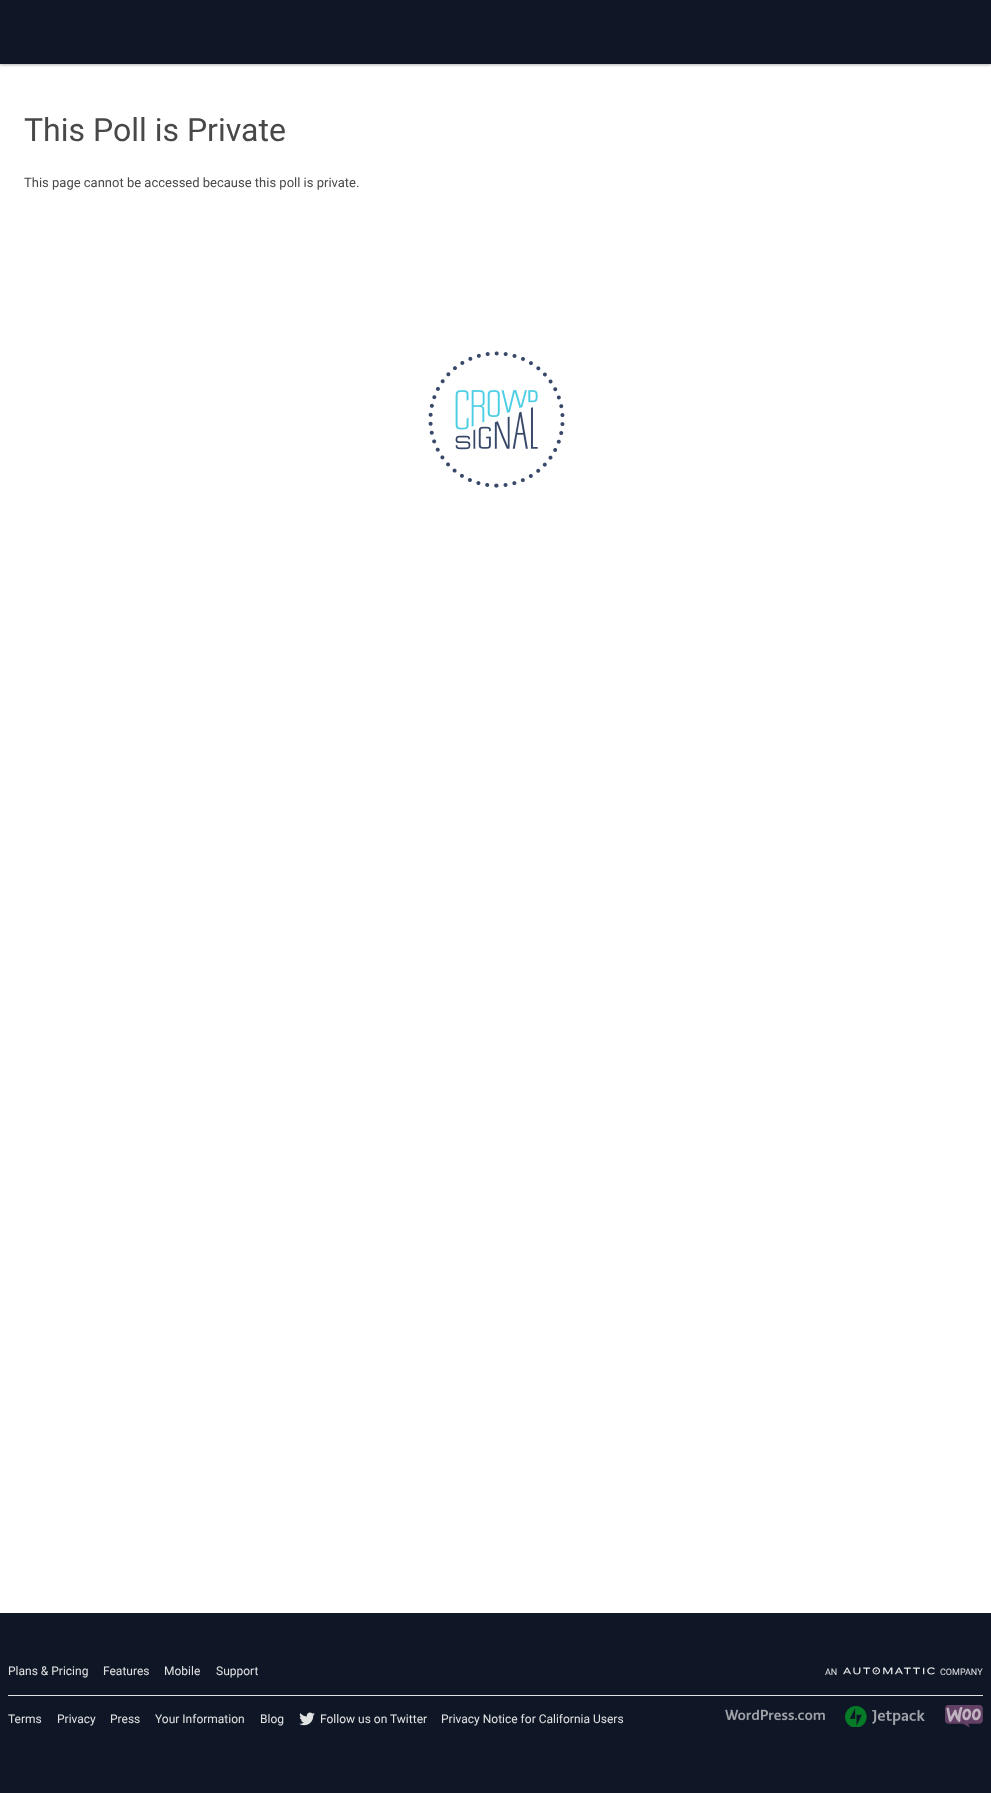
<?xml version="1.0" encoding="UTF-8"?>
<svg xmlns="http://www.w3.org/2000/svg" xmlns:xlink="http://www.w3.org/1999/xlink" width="991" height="1793">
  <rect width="100%" height="100%" fill="#ffffff" />
  <rect y="1" width="991" height="64" fill="#000000" fill-opacity="0.3" filter="blur(1.5px)" />
  <rect width="991" height="64" fill="#0f1726" />
  <image x="428" y="351" width="137" height="137" xlink:href="image1.png" />
  <rect y="1613" width="991" height="180" fill="#0f1726" />
  <rect x="8" y="1695" width="975" height="1" fill="#e1e2e2" />
  <image x="843" y="1667" width="92" height="8" xlink:href="image2.png" />
  <image x="299" y="1712" width="16" height="14" xlink:href="image3.png" />
  <image x="725" y="1709" width="100" height="12" xlink:href="image4.png" />
  <image x="845" y="1706" width="80" height="21" xlink:href="image5.png" />
  <image x="945" y="1705" width="38" height="23" xlink:href="image6.png" />
  <text x="24" y="141" style="font-family: Roboto; font-size: 32px; fill: #484848">This Poll is Private</text>
  <text x="24" y="187" style="font-family: Roboto; font-size: 13px; fill: #484848">This page cannot be accessed because this poll is private.</text>
  <text x="8" y="1675" style="font-family: Roboto; font-size: 12px; fill: #e1e2e2">Plans &amp; Pricing</text>
  <text x="103" y="1675" style="font-family: Roboto; font-size: 12px; fill: #e1e2e2">Features</text>
  <text x="164" y="1675" style="font-family: Roboto; font-size: 12px; fill: #e1e2e2">Mobile</text>
  <text x="216" y="1675" style="font-family: Roboto; font-size: 12px; fill: #e1e2e2">Support</text>
  <text x="825" y="1675" style="font-family: Roboto; font-size: 9px; fill: #e1e2e2">AN</text>
  <text x="940" y="1675" style="font-family: Roboto; font-size: 9px; fill: #e1e2e2">COMPANY</text>
  <text x="8" y="1723" style="font-family: Roboto; font-size: 12px; fill: #e1e2e2">Terms</text>
  <text x="57" y="1723" style="font-family: Roboto; font-size: 12px; fill: #e1e2e2">Privacy</text>
  <text x="110" y="1723" style="font-family: Roboto; font-size: 12px; fill: #e1e2e2">Press</text>
  <text x="155" y="1723" style="font-family: Roboto; font-size: 12px; fill: #e1e2e2">Your Information</text>
  <text x="260" y="1723" style="font-family: Roboto; font-size: 12px; fill: #e1e2e2">Blog</text>
  <text x="320" y="1723" style="font-family: Roboto; font-size: 12px; fill: #e1e2e2">Follow us on Twitter</text>
  <text x="441" y="1723" style="font-family: Roboto; font-size: 12px; fill: #e1e2e2">Privacy Notice for California Users</text>
</svg>
